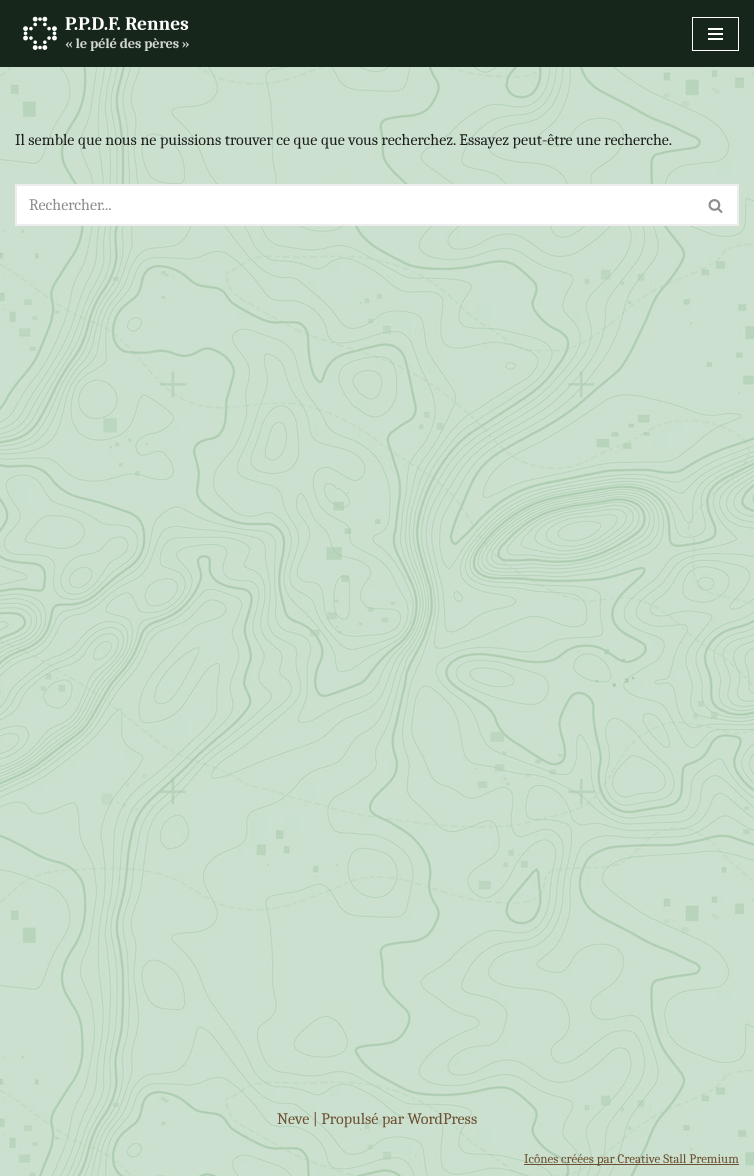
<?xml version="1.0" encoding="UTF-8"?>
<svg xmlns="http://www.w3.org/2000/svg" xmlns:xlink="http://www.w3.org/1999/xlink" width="754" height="1176">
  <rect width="100%" height="100%" fill="#ffffff" />
  <image x="0" y="67" width="754" height="1109" xlink:href="image1.png" />
  <rect width="754" height="67" fill="#17261b" />
  <image x="23" y="16" width="166" height="35" xlink:href="image2.png" />
  <rect x="692.5" y="17.5" width="46" height="33" fill="none" stroke="#ffffff" />
  <rect x="708" y="28" width="15" height="2" fill="#ffffff" />
  <rect x="708" y="33" width="15" height="2" fill="#ffffff" />
  <rect x="708" y="38" width="15" height="2" fill="#ffffff" />
  <rect x="17" y="186" width="720" height="38" fill="#ffffff" />
  <rect x="15" y="184" width="724" height="2" fill="#ededed" />
  <rect x="15" y="224" width="679" height="2" fill="#ededed" />
  <rect x="15" y="184" width="2" height="42" fill="#ededed" />
  <rect x="737" y="184" width="2" height="42" fill="#ededed" />
  <rect x="694" y="224" width="45" height="2" fill="#ededed" />
  <image x="708" y="199" width="15" height="14" xlink:href="image3.png" />
  <rect x="524" y="1164" width="215" height="1" fill="#6c5031" />
  <text x="15" y="145" style="font-family: Caladea; font-size: 16px; fill: #1b1b1b">Il semble que nous ne puissions trouver ce que que vous recherchez. Essayez peut-être une recherche.</text>
  <text x="29" y="210" style="font-family: Caladea; font-size: 16px; fill: #8d8d8d">Rechercher...</text>
  <text x="277" y="1124" style="font-family: Caladea; font-size: 16px; fill: #6c5031">Neve | Propulsé par WordPress</text>
  <text x="524" y="1163" style="font-family: Caladea; font-size: 13px; fill: #6c5031">Icônes créées par Creative Stall Premium</text>
</svg>
